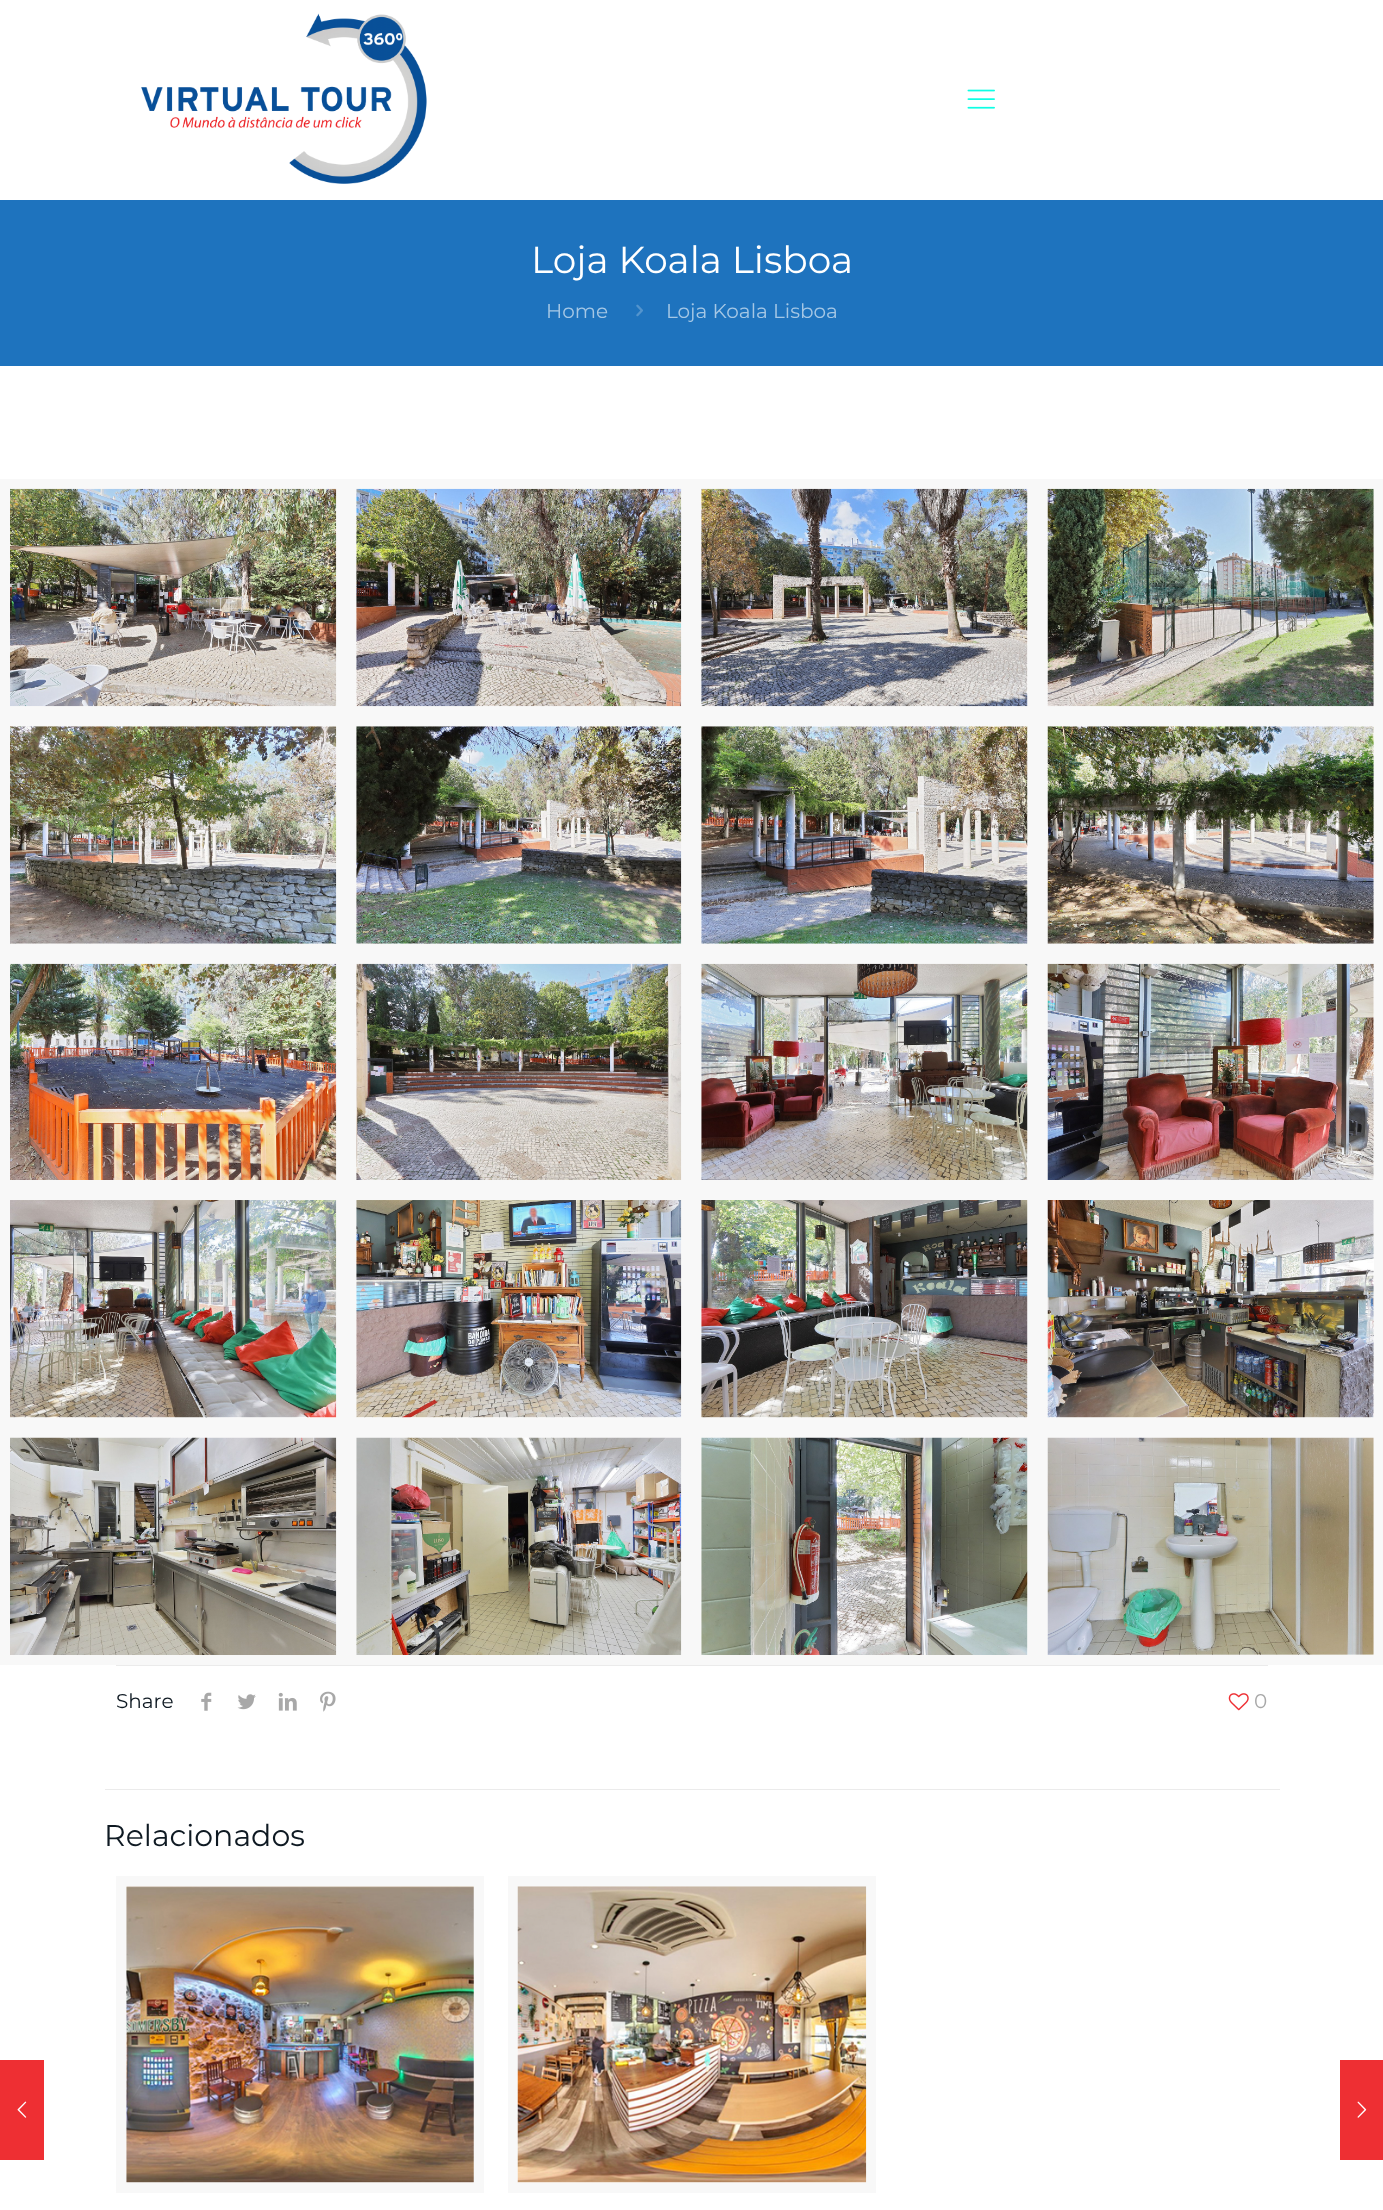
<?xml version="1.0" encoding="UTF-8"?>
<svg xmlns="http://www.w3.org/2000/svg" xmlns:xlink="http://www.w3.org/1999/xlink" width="1383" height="2210">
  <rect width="100%" height="100%" fill="#ffffff" />
  <image x="141" y="13" width="286" height="171" xlink:href="image1.png" />
  <image x="967" y="89" width="28" height="20" xlink:href="image2.png" />
  <rect y="200" width="1383" height="166" fill="#1e73be" />
  <image x="636" y="304" width="7" height="13" xlink:href="image3.png" />
  <rect x="5" y="484" width="336" height="227" fill="none" stroke="#f8f8f8" stroke-width="10" />
  <image x="10" y="488" width="327" height="219" xlink:href="image4.png" />
  <rect x="351" y="484" width="335" height="227" fill="none" stroke="#f8f8f8" stroke-width="10" />
  <image x="356" y="488" width="326" height="219" xlink:href="image5.png" />
  <rect x="696" y="484" width="337" height="227" fill="none" stroke="#f8f8f8" stroke-width="10" />
  <image x="701" y="488" width="327" height="219" xlink:href="image6.png" />
  <rect x="1043" y="484" width="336" height="227" fill="none" stroke="#f8f8f8" stroke-width="10" />
  <image x="1047" y="488" width="327" height="219" xlink:href="image7.png" />
  <rect x="5" y="721" width="336" height="228" fill="none" stroke="#f8f8f8" stroke-width="10" />
  <image x="10" y="726" width="327" height="218" xlink:href="image8.png" />
  <rect x="351" y="721" width="335" height="228" fill="none" stroke="#f8f8f8" stroke-width="10" />
  <image x="356" y="726" width="326" height="218" xlink:href="image9.png" />
  <rect x="696" y="721" width="337" height="228" fill="none" stroke="#f8f8f8" stroke-width="10" />
  <image x="701" y="726" width="327" height="218" xlink:href="image10.png" />
  <rect x="1043" y="721" width="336" height="228" fill="none" stroke="#f8f8f8" stroke-width="10" />
  <image x="1047" y="726" width="327" height="218" xlink:href="image11.png" />
  <rect x="5" y="959" width="336" height="226" fill="none" stroke="#f8f8f8" stroke-width="10" />
  <image x="10" y="963" width="327" height="217" xlink:href="image12.png" />
  <rect x="351" y="959" width="335" height="226" fill="none" stroke="#f8f8f8" stroke-width="10" />
  <image x="356" y="963" width="326" height="217" xlink:href="image13.png" />
  <rect x="696" y="959" width="337" height="226" fill="none" stroke="#f8f8f8" stroke-width="10" />
  <image x="701" y="963" width="327" height="217" xlink:href="image14.png" />
  <rect x="1043" y="959" width="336" height="226" fill="none" stroke="#f8f8f8" stroke-width="10" />
  <image x="1047" y="963" width="327" height="217" xlink:href="image15.png" />
  <rect x="5" y="1195" width="336" height="228" fill="none" stroke="#f8f8f8" stroke-width="10" />
  <image x="10" y="1200" width="327" height="218" xlink:href="image16.png" />
  <rect x="351" y="1195" width="335" height="228" fill="none" stroke="#f8f8f8" stroke-width="10" />
  <image x="356" y="1200" width="326" height="218" xlink:href="image17.png" />
  <rect x="696" y="1195" width="337" height="228" fill="none" stroke="#f8f8f8" stroke-width="10" />
  <image x="701" y="1200" width="327" height="218" xlink:href="image18.png" />
  <rect x="1043" y="1195" width="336" height="228" fill="none" stroke="#f8f8f8" stroke-width="10" />
  <image x="1047" y="1200" width="327" height="218" xlink:href="image19.png" />
  <rect x="5" y="1433" width="336" height="227" fill="none" stroke="#f8f8f8" stroke-width="10" />
  <image x="10" y="1437" width="327" height="218" xlink:href="image20.png" />
  <rect x="351" y="1433" width="335" height="227" fill="none" stroke="#f8f8f8" stroke-width="10" />
  <image x="356" y="1437" width="326" height="218" xlink:href="image21.png" />
  <rect x="696" y="1433" width="337" height="227" fill="none" stroke="#f8f8f8" stroke-width="10" />
  <image x="701" y="1437" width="327" height="218" xlink:href="image22.png" />
  <rect x="1043" y="1433" width="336" height="227" fill="none" stroke="#f8f8f8" stroke-width="10" />
  <image x="1047" y="1437" width="327" height="218" xlink:href="image23.png" />
  <rect x="116" y="1665" width="1152" height="1" fill="#ebebeb" />
  <image x="201" y="1692" width="11" height="19" xlink:href="image24.png" />
  <image x="237" y="1694" width="19" height="16" xlink:href="image25.png" />
  <image x="278" y="1692" width="19" height="19" xlink:href="image26.png" />
  <image x="320" y="1691" width="16" height="21" xlink:href="image27.png" />
  <image x="1228" y="1693" width="21" height="18" xlink:href="image28.png" />
  <rect x="105" y="1789" width="1175" height="1" fill="#ebebeb" />
  <rect x="121" y="1881" width="358" height="307" fill="none" stroke="#f8f8f8" stroke-width="10" />
  <image x="126" y="1886" width="348" height="297" xlink:href="image29.png" />
  <rect x="513" y="1881" width="358" height="307" fill="none" stroke="#f8f8f8" stroke-width="10" />
  <image x="517" y="1886" width="350" height="297" xlink:href="image30.png" />
  <rect y="2060" width="44" height="100" fill="#ee2f33" />
  <image x="17" y="2101" width="10" height="17" xlink:href="image31.png" />
  <rect x="1340" y="2060" width="43" height="100" fill="#ee2f33" />
  <image x="1357" y="2101" width="10" height="17" xlink:href="image32.png" />
  <text x="531" y="273" style="font-family: Montserrat; font-size: 37.5px; fill: #ffffff">Loja Koala Lisboa</text>
  <text x="546" y="318" style="font-family: Montserrat; font-size: 20px; fill: #a5c7e5">Home</text>
  <text x="666" y="318" style="font-family: Montserrat; font-size: 20px; fill: #a5c7e5">Loja Koala Lisboa</text>
  <text x="116" y="1708" style="font-family: Montserrat; font-size: 20px; fill: #0e1922">Share</text>
  <text x="1254" y="1708" style="font-family: Montserrat; font-size: 20px; fill: #a8a8a8">0</text>
  <text x="104" y="1846" style="font-family: Montserrat; font-size: 30px; fill: #0e1922">Relacionados</text>
</svg>
